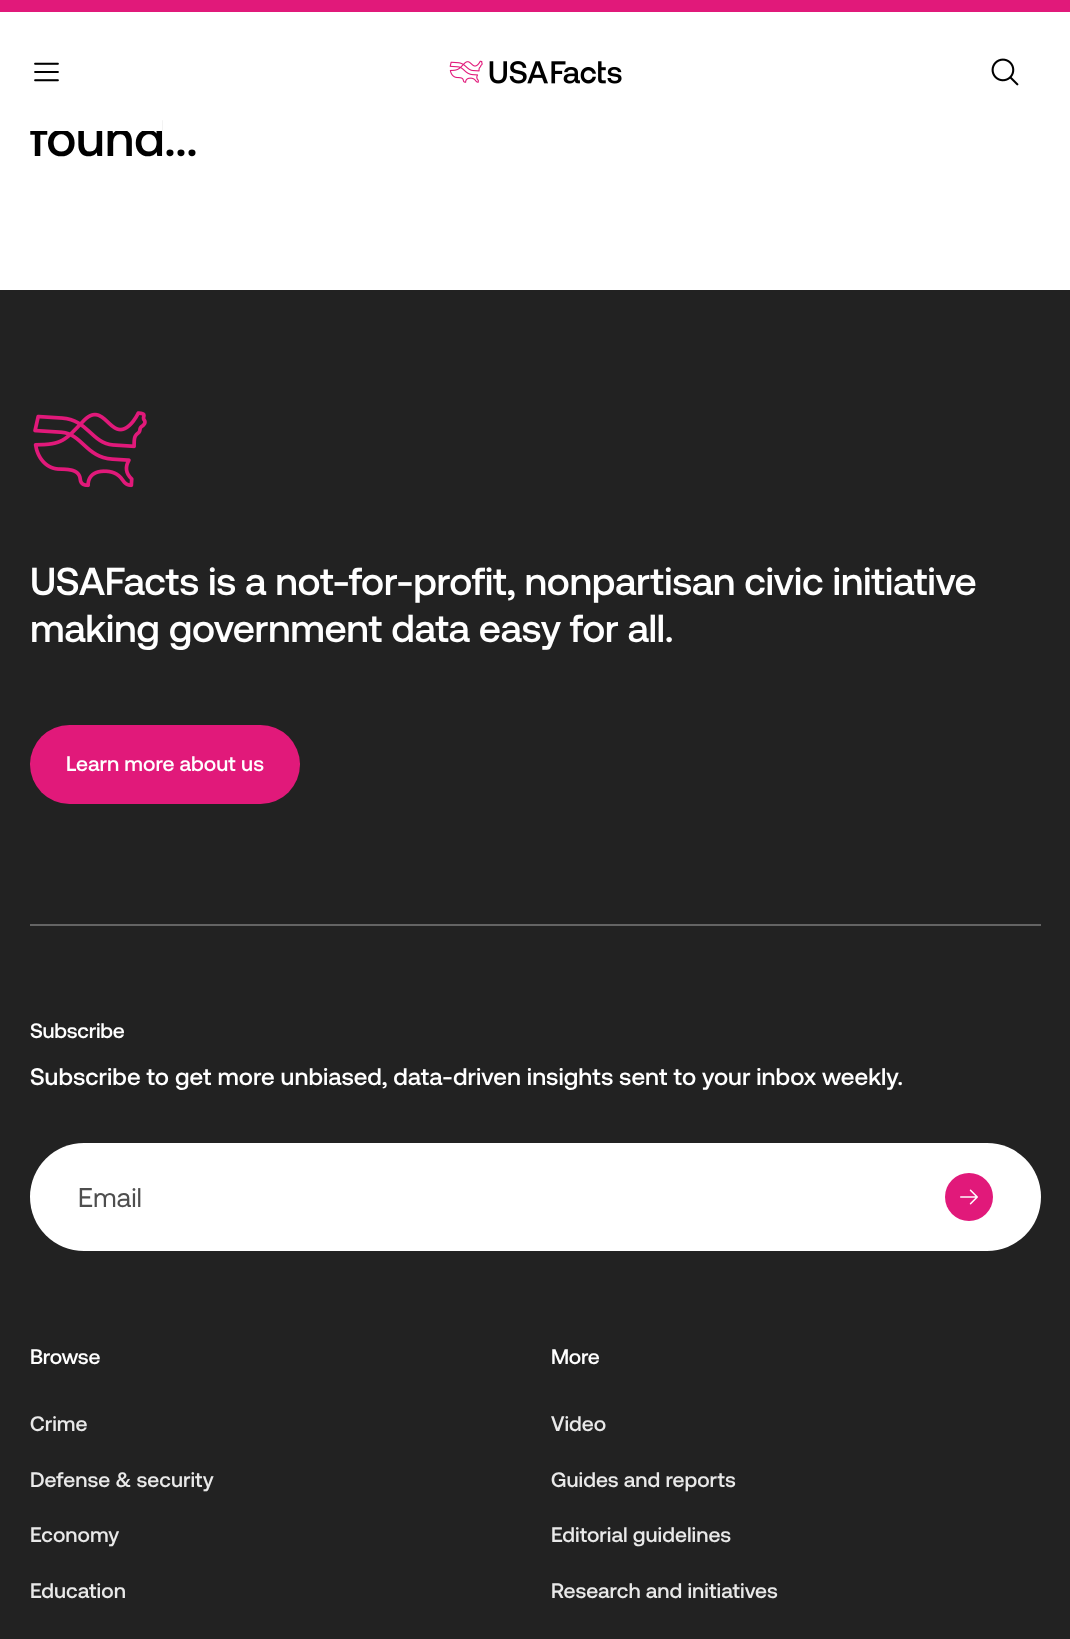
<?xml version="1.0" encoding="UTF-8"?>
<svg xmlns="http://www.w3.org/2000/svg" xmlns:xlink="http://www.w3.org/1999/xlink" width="1070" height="1639">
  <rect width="100%" height="100%" fill="#ffffff" />
  <rect width="1070" height="12" fill="#e1197a" />
  <image x="34" y="62" width="25" height="20" xlink:href="image1.png" />
  <image x="449" y="60" width="173" height="24" xlink:href="image2.png" />
  <image x="991" y="58" width="28" height="28" xlink:href="image3.png" />
  <rect y="290" width="1070" height="1349" fill="#222222" />
  <rect x="30" y="924" width="1011" height="2" fill="#646464" />
  <image x="33" y="411" width="114" height="77" xlink:href="image4.png" />
  <rect x="30" y="725" width="270" height="79" rx="39.5" fill="#e1197a" />
  <rect x="30" y="1143" width="1011" height="108" rx="54" fill="#ffffff" />
  <circle cx="969" cy="1197" r="24" fill="#e1197a" />
  <image x="960" y="1189" width="18" height="16" xlink:href="image5.png" />
  <text x="30" y="156" style="font-family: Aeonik; font-size: 51px; font-weight: 500; letter-spacing: -0.5px; fill: #000000">found...</text>
  <rect x="30" y="120" width="132" height="11" fill="#ffffff" />
  <text x="30" y="595" style="font-family: Aeonik; font-size: 39px; font-weight: 500; letter-spacing: -0.4px; fill: #ffffff">USAFacts is a not-for-profit, nonpartisan civic initiative</text>
  <text x="30" y="642" style="font-family: Aeonik; font-size: 39px; font-weight: 500; letter-spacing: -0.4px; fill: #ffffff">making government data easy for all.</text>
  <text x="66" y="771" style="font-family: Aeonik; font-size: 21px; font-weight: 500; fill: #ffffff">Learn more about us</text>
  <text x="30" y="1038" style="font-family: Aeonik; font-size: 21px; font-weight: 500; letter-spacing: -0.25px; fill: #ffffff">Subscribe</text>
  <text x="30" y="1085" style="font-family: Aeonik; font-size: 24px; font-weight: 500; fill: #ffffff">Subscribe to get more unbiased, data-driven insights sent to your inbox weekly.</text>
  <text x="78" y="1207" style="font-family: Aeonik; font-size: 27px; fill: #4e4e4e">Email</text>
  <text x="30" y="1364" style="font-family: Aeonik; font-size: 21px; font-weight: 500; letter-spacing: -0.25px; fill: #ffffff">Browse</text>
  <text x="30" y="1431" style="font-family: Aeonik; font-size: 21px; font-weight: 500; fill: #e9e9e9">Crime</text>
  <text x="30" y="1487" style="font-family: Aeonik; font-size: 21px; font-weight: 500; fill: #e9e9e9">Defense &amp; security</text>
  <text x="30" y="1542" style="font-family: Aeonik; font-size: 21px; font-weight: 500; fill: #e9e9e9">Economy</text>
  <text x="30" y="1598" style="font-family: Aeonik; font-size: 21px; font-weight: 500; fill: #e9e9e9">Education</text>
  <text x="551" y="1364" style="font-family: Aeonik; font-size: 21px; font-weight: 500; letter-spacing: -0.25px; fill: #ffffff">More</text>
  <text x="551" y="1431" style="font-family: Aeonik; font-size: 21px; font-weight: 500; fill: #e9e9e9">Video</text>
  <text x="551" y="1487" style="font-family: Aeonik; font-size: 21px; font-weight: 500; fill: #e9e9e9">Guides and reports</text>
  <text x="551" y="1542" style="font-family: Aeonik; font-size: 21px; font-weight: 500; fill: #e9e9e9">Editorial guidelines</text>
  <text x="551" y="1598" style="font-family: Aeonik; font-size: 21px; font-weight: 500; fill: #e9e9e9">Research and initiatives</text>
</svg>
